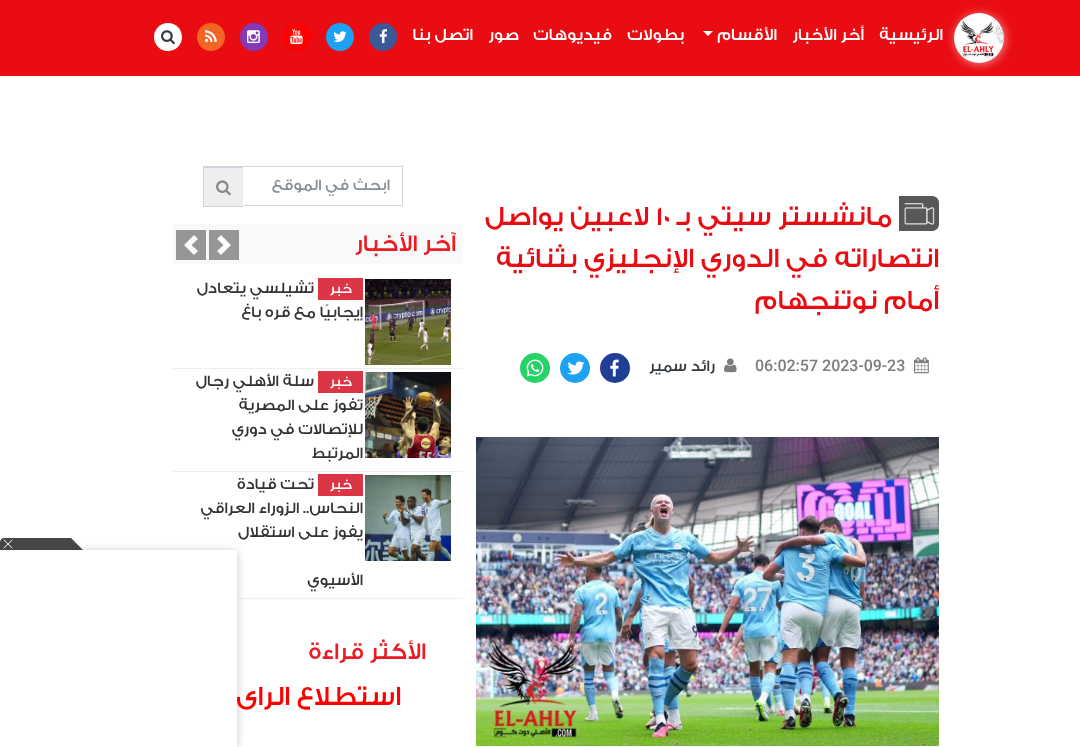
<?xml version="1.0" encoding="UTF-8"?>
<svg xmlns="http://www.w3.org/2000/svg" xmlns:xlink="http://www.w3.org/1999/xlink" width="1080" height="747">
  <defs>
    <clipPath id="clip1"><rect x="255" y="176" width="135" height="20" /></clipPath>
  </defs>
  <rect width="100%" height="100%" fill="#ffffff" />
  <rect width="1080" height="76" fill="#e90d13" />
  <rect x="954" y="13" width="52" height="52" rx="26" fill="#fdf8f7" fill-opacity="0.43" filter="blur(4.5px)" />
  <image x="954" y="13" width="50" height="50" xlink:href="image1.png" />
  <path d="M 703 31 h 10 l -5 5 z" fill="#ffffff" />
  <circle cx="383" cy="37" r="14" fill="#3b5998" />
  <image x="379" y="29" width="9" height="15" xlink:href="image2.png" />
  <circle cx="340" cy="37" r="14" fill="#1da1f2" />
  <image x="333" y="31" width="14" height="11" xlink:href="image3.png" />
  <circle cx="297" cy="37" r="14" fill="#ff0000" />
  <image x="290" y="29" width="13" height="16" xlink:href="image4.png" />
  <circle cx="254" cy="37" r="14" fill="#833ab4" />
  <image x="247" y="30" width="13" height="14" xlink:href="image5.png" />
  <circle cx="211" cy="37" r="14" fill="#f26522" />
  <image x="205" y="30" width="12" height="12" xlink:href="image6.png" />
  <circle cx="168" cy="37" r="14" fill="#ffffff" />
  <image x="161" y="30" width="14" height="15" xlink:href="image7.png" />
  <path d="M 899 196 h 33 c 4 0 7 3 7 7 v 21 c 0 4 -3 7 -7 7 h -33 z" fill="#595757" />
  <image x="904" y="203" width="31" height="22" xlink:href="image8.png" />
  <image x="914" y="357" width="15" height="17" xlink:href="image9.png" />
  <image x="724" y="358" width="13" height="15" xlink:href="image10.png" />
  <circle cx="615" cy="368" r="15" fill="#213e97" />
  <image x="610" y="359" width="9" height="18" xlink:href="image11.png" />
  <circle cx="575" cy="368" r="15" fill="#1da1f2" />
  <image x="567" y="361" width="18" height="14" xlink:href="image12.png" />
  <circle cx="535" cy="368" r="15" fill="#25d366" />
  <image x="526" y="359" width="18" height="18" xlink:href="image13.png" />
  <image x="476" y="437" width="463" height="309" xlink:href="image14.png" />
  <rect x="243" y="166" width="160" height="1" fill="#ced4da" />
  <rect x="402" y="166" width="1" height="40" fill="#ced4da" />
  <rect x="243" y="205" width="160" height="1" fill="#ced4da" />
  <rect x="203" y="166" width="40" height="2" fill="#ced4da" />
  <rect x="204" y="168" width="39" height="38" fill="#eeeeee" />
  <rect x="203" y="206" width="40" height="1" fill="#ced4da" />
  <rect x="203" y="167" width="1" height="40" fill="#ced4da" />
  <image x="216" y="180" width="15" height="16" xlink:href="image15.png" />
  <rect x="173" y="224" width="290" height="40" fill="#f8f9fa" />
  <rect x="209" y="230" width="30" height="30" fill="#969697" />
  <path d="M 221 235 l -4 4 l 6.5 6 l -6.5 6 l 4 4 l 10 -10 z" fill="#fcfcfd" />
  <rect x="176" y="230" width="30" height="30" fill="#969697" />
  <path d="M 194 235 l -10 10 l 10 10 l 4 -4 l -6.5 -6 l 6.5 -6 z" fill="#fcfcfd" />
  <rect x="173" y="368" width="290" height="1" fill="#eeeeee" />
  <image x="365" y="279" width="86" height="86" xlink:href="image16.png" />
  <rect x="318" y="278" width="45" height="22" fill="#dc3545" />
  <rect x="173" y="471" width="290" height="1" fill="#eeeeee" />
  <image x="365" y="372" width="86" height="86" xlink:href="image17.png" />
  <rect x="318" y="371" width="45" height="22" fill="#dc3545" />
  <rect x="237" y="598" width="226" height="1" fill="#eeeeee" />
  <image x="365" y="475" width="86" height="86" xlink:href="image18.png" />
  <rect x="318" y="474" width="45" height="22" fill="#dc3545" />
  <rect x="1" y="551" width="236" height="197" fill="#c7c7c7" filter="blur(4px)" />
  <path d="M 4 538 h 67 v 12 h -71 v -8 c 0 -2 2 -4 4 -4 z" fill="#464646" />
  <path d="M 71 538 l 12 12 h -12 z" fill="#464646" />
  <path d="M 4 539.5 l 8.5 8.5 l -0.5 0.5 l -8.5 -8.5 z" fill="#ffffff" />
  <path d="M 3.5 548 l 8.5 -8.5 l 0.5 0.5 l -8.5 8.5 z" fill="#ffffff" />
  <text x="943" y="40" style="font-family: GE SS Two; font-size: 17px; font-weight: 500; direction: rtl; fill: #ffffff">الرئيسية</text>
  <text x="864" y="40" style="font-family: GE SS Two; font-size: 17px; font-weight: 500; direction: rtl; fill: #ffffff">أخر الأخبار</text>
  <text x="777" y="40" style="font-family: GE SS Two; font-size: 17px; font-weight: 500; direction: rtl; fill: #ffffff">الأقسام</text>
  <text x="684" y="40" style="font-family: GE SS Two; font-size: 17px; font-weight: 500; direction: rtl; fill: #ffffff">بطولات</text>
  <text x="612" y="40" style="font-family: GE SS Two; font-size: 17px; font-weight: 500; direction: rtl; fill: #ffffff">فيديوهات</text>
  <text x="519" y="40" style="font-family: GE SS Two; font-size: 17px; font-weight: 500; direction: rtl; fill: #ffffff">صور</text>
  <text x="473" y="40" style="font-family: GE SS Two; font-size: 17px; font-weight: 500; direction: rtl; fill: #ffffff">اتصل بنا</text>
  <text x="892" y="225" style="font-family: GE SS Two; font-size: 28px; font-weight: 500; direction: rtl; fill: #e90d13">مانشستر سيتي بـ</text>
  <text x="656" y="225" style="font-family: GE SS Two; font-size: 28px; font-weight: 500; fill: #e90d13">10</text>
  <text x="649" y="225" style="font-family: GE SS Two; font-size: 28px; font-weight: 500; direction: rtl; fill: #e90d13">لاعبين يواصل</text>
  <text x="939" y="267" style="font-family: GE SS Two; font-size: 28px; font-weight: 500; direction: rtl; fill: #e90d13">انتصاراته في الدوري الإنجليزي بثنائية</text>
  <text x="939" y="309" style="font-family: GE SS Two; font-size: 28px; font-weight: 500; direction: rtl; fill: #e90d13">أمام نوتنجهام</text>
  <text x="755" y="371" style="font-family: Roboto; font-size: 16px; font-weight: 500; fill: #7d7d7d">06:02:57 2023-09-23</text>
  <text x="715" y="371" style="font-family: GE SS Two; font-size: 16px; font-weight: 500; direction: rtl; fill: #343a40">رائد سمير</text>
  <g clip-path="url(#clip1)">
    <text x="390" y="190" style="font-family: GE SS Two; font-size: 16px; font-weight: 500; direction: rtl; fill: #868e96">ابحث في الموقع</text>
  </g>
  <text x="456" y="251" style="font-family: GE SS Two; font-size: 24px; font-weight: 500; direction: rtl; fill: #eb1c24">آخر الأخبار</text>
  <text x="352" y="293" style="font-family: GE SS Two; font-size: 14px; font-weight: 500; direction: rtl; fill: #ffffff">خبر</text>
  <text x="314" y="293" style="font-family: GE SS Two; font-size: 16px; font-weight: 500; direction: rtl; fill: #333333">تشيلسي يتعادل</text>
  <text x="363" y="317" style="font-family: GE SS Two; font-size: 16px; font-weight: 500; direction: rtl; fill: #333333">إيجابيًا مع قره باغ</text>
  <text x="352" y="386" style="font-family: GE SS Two; font-size: 14px; font-weight: 500; direction: rtl; fill: #ffffff">خبر</text>
  <text x="314" y="386" style="font-family: GE SS Two; font-size: 16px; font-weight: 500; direction: rtl; fill: #333333">سلة الأهلي رجال</text>
  <text x="363" y="410" style="font-family: GE SS Two; font-size: 16px; font-weight: 500; direction: rtl; fill: #333333">تفوز على المصرية</text>
  <text x="363" y="434" style="font-family: GE SS Two; font-size: 16px; font-weight: 500; direction: rtl; fill: #333333">للإتصالات في دوري</text>
  <text x="363" y="458" style="font-family: GE SS Two; font-size: 16px; font-weight: 500; direction: rtl; fill: #333333">المرتبط</text>
  <text x="352" y="489" style="font-family: GE SS Two; font-size: 14px; font-weight: 500; direction: rtl; fill: #ffffff">خبر</text>
  <text x="314" y="489" style="font-family: GE SS Two; font-size: 16px; font-weight: 500; direction: rtl; fill: #333333">تحت قيادة</text>
  <text x="363" y="513" style="font-family: GE SS Two; font-size: 16px; font-weight: 500; direction: rtl; fill: #333333">النحاس.. الزوراء العراقي</text>
  <text x="363" y="537" style="font-family: GE SS Two; font-size: 16px; font-weight: 500; direction: rtl; fill: #333333">يفوز على استقلال</text>
  <text x="363" y="585" style="font-family: GE SS Two; font-size: 16px; font-weight: 500; direction: rtl; fill: #333333">الأسيوي</text>
  <text x="426" y="659" style="font-family: GE SS Two; font-size: 24px; font-weight: 500; direction: rtl; fill: #eb1c24">الأكثر قراءة</text>
  <text x="401" y="705" style="font-family: GE SS Two; font-size: 28px; font-weight: 500; direction: rtl; fill: #ff0000">استطلاع الراى</text>
  <rect y="550" width="237" height="197" fill="#ffffff" />
</svg>
